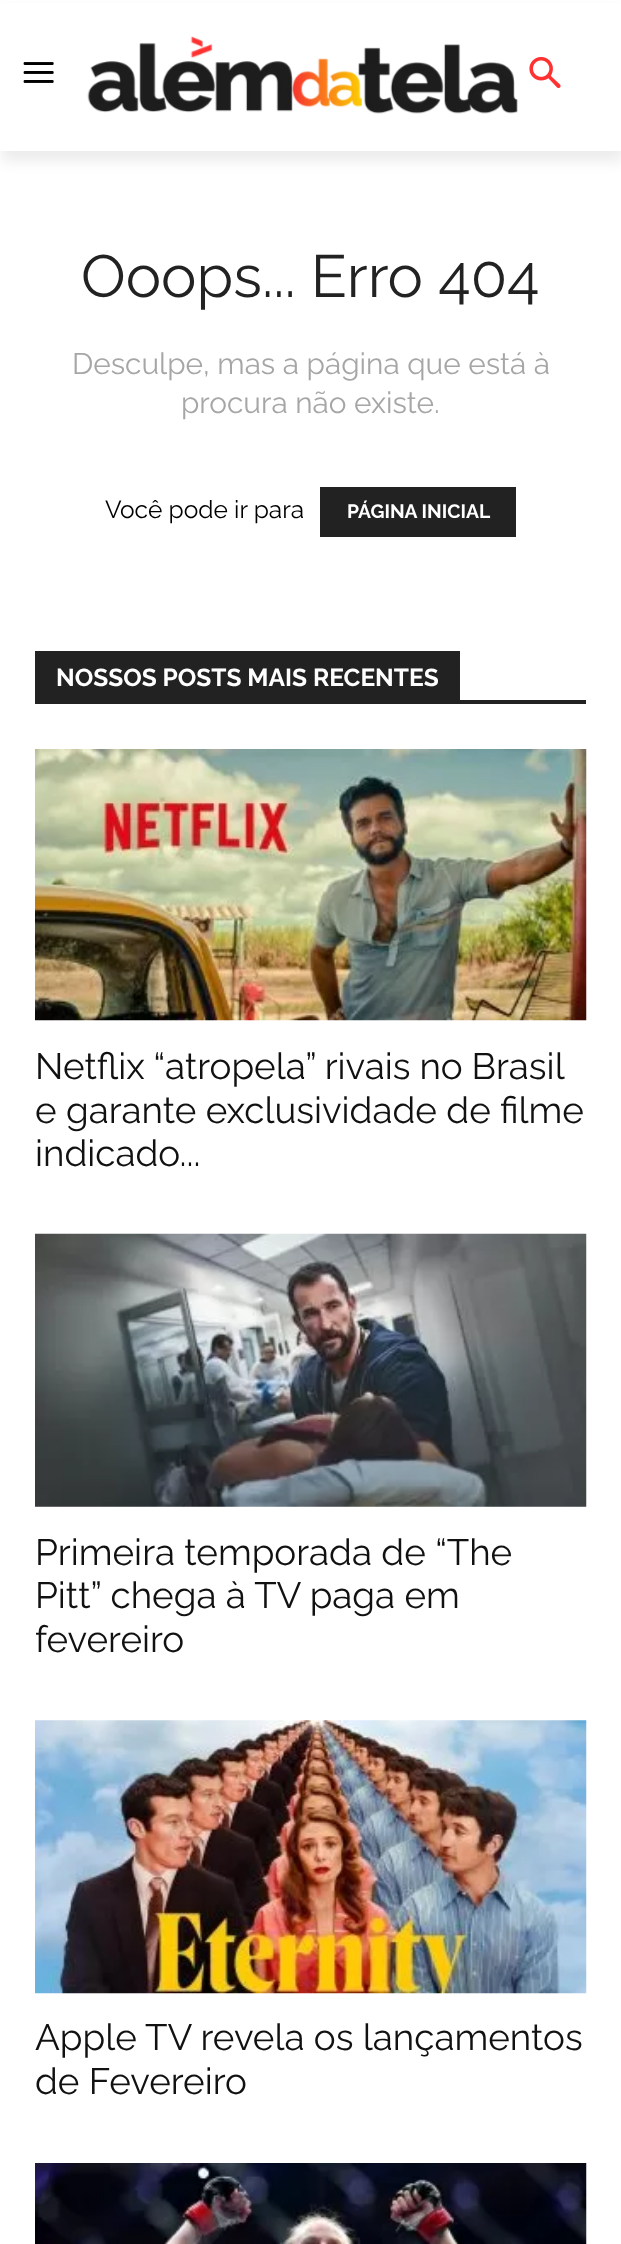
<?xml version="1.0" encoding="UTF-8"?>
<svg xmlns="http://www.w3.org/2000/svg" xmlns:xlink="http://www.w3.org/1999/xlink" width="621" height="2244">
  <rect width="100%" height="100%" fill="#ffffff" />
  <rect x="2" y="11" width="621" height="150" fill="#000000" fill-opacity="0.08" filter="blur(7px)" />
  <rect y="3" width="621" height="148" fill="#ffffff" />
  <image x="23" y="62" width="31" height="21" xlink:href="image1.png" />
  <image x="87" y="36" width="431" height="78" xlink:href="image2.png" />
  <image x="529" y="56" width="32" height="32" xlink:href="image3.png" />
  <rect x="320" y="487" width="196" height="50" fill="#222222" />
  <rect x="35" y="700" width="551" height="4" fill="#222222" />
  <rect x="35" y="651" width="425" height="49" fill="#222222" />
  <image x="35" y="749" width="552" height="272" xlink:href="image4.png" />
  <image x="35" y="1233" width="552" height="274" xlink:href="image5.png" />
  <image x="35" y="1720" width="552" height="274" xlink:href="image6.png" />
  <image x="35" y="2163" width="552" height="81" xlink:href="image7.png" />
  <text x="81" y="297" style="font-family: Raleway; font-size: 59.5px; font-weight: 100; fill: #222222">Ooops... Erro 404</text>
  <text x="72" y="374" style="font-family: Raleway; font-size: 29.75px; font-weight: 100; fill: #a6a6a6">Desculpe, mas a página que está à</text>
  <text x="181" y="413" style="font-family: Raleway; font-size: 29.75px; font-weight: 100; fill: #a6a6a6">procura não existe.</text>
  <text x="105" y="518" style="font-family: Raleway; font-size: 24.5px; font-weight: 100; fill: #000000">Você pode ir para</text>
  <text x="347" y="518" style="font-family: 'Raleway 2'; font-size: 19.25px; font-weight: 100; fill: #ffffff">PÁGINA INICIAL</text>
  <text x="56" y="686" style="font-family: 'Raleway 2'; font-size: 24.5px; font-weight: 100; fill: #ffffff">NOSSOS POSTS MAIS RECENTES</text>
  <text x="35" y="1079" word-spacing="-0.5" style="font-family: Raleway; font-size: 36.75px; font-weight: 100; fill: #111111">Netflix “atropela” rivais no Brasil</text>
  <text x="35" y="1123" style="font-family: Raleway; font-size: 36.75px; font-weight: 100; fill: #111111">e garante exclusividade de filme</text>
  <text x="35" y="1166" style="font-family: Raleway; font-size: 36.75px; font-weight: 100; fill: #111111">indicado...</text>
  <text x="35" y="1565" style="font-family: Raleway; font-size: 36.75px; font-weight: 100; fill: #111111">Primeira temporada de “The</text>
  <text x="35" y="1608" style="font-family: Raleway; font-size: 36.75px; font-weight: 100; fill: #111111">Pitt” chega à TV paga em</text>
  <text x="35" y="1652" style="font-family: Raleway; font-size: 36.75px; font-weight: 100; fill: #111111">fevereiro</text>
  <text x="35" y="2050" style="font-family: Raleway; font-size: 36.75px; font-weight: 100; fill: #111111">Apple TV revela os lançamentos</text>
  <text x="35" y="2094" style="font-family: Raleway; font-size: 36.75px; font-weight: 100; fill: #111111">de Fevereiro</text>
</svg>
